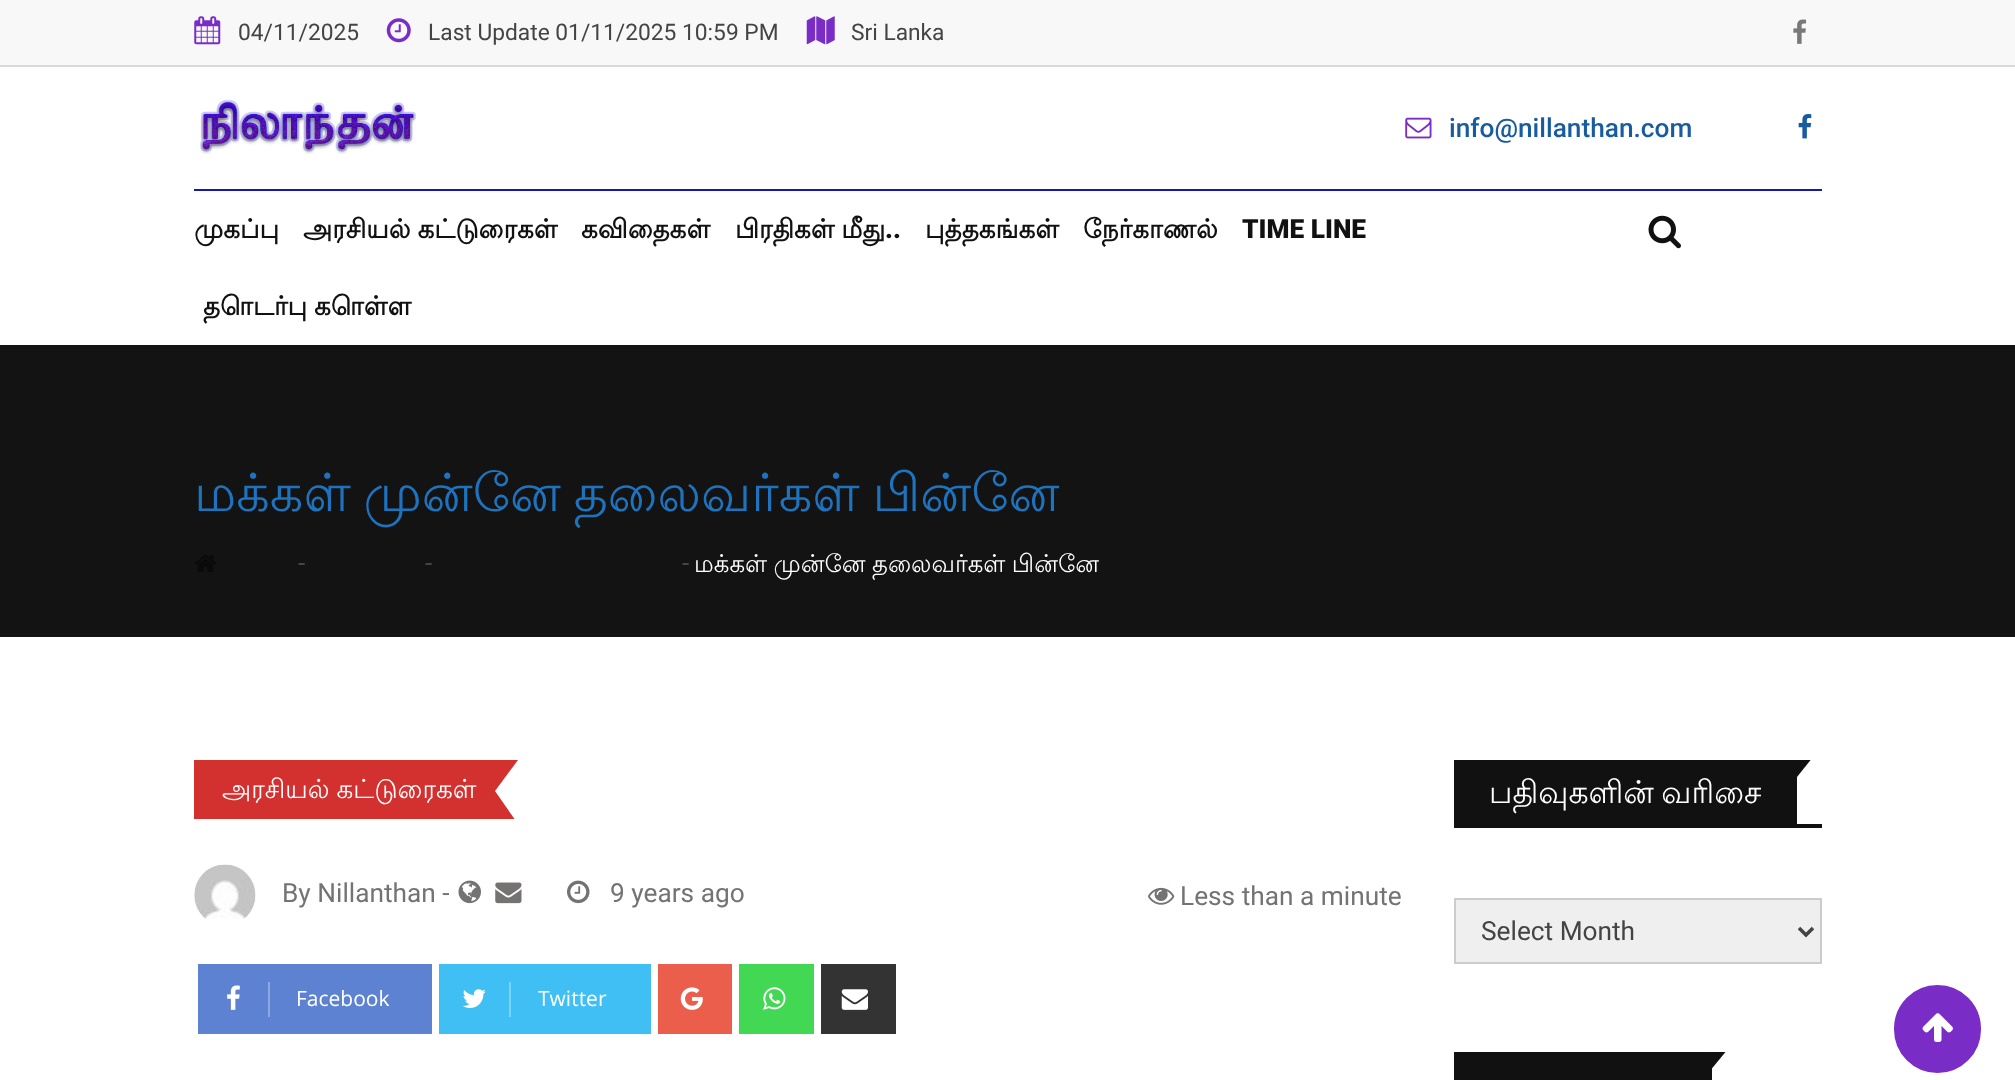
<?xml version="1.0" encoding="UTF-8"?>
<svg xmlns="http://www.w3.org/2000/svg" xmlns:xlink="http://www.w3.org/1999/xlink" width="2015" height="1080">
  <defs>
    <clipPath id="clip1"><rect x="1454" y="760" width="368" height="204" /></clipPath>
  </defs>
  <rect width="100%" height="100%" fill="#ffffff" />
  <rect width="2015" height="65" fill="#f8f8f8" />
  <rect y="65" width="2015" height="2" fill="#dadada" />
  <image x="194" y="16" width="27" height="29" xlink:href="image1.png" />
  <image x="386" y="18" width="25" height="25" xlink:href="image2.png" />
  <image x="806" y="16" width="29" height="29" xlink:href="image3.png" />
  <image x="1793" y="19" width="14" height="25" xlink:href="image4.png" />
  <image x="200" y="99" width="216" height="55" xlink:href="image5.png" />
  <image x="1405" y="117" width="27" height="22" xlink:href="image6.png" />
  <image x="1798" y="114" width="14" height="25" xlink:href="image7.png" />
  <rect x="194" y="189" width="1628" height="2" fill="#1818ae" />
  <image x="1648" y="215" width="33" height="34" xlink:href="image8.png" />
  <rect y="345" width="2015" height="292" fill="#131313" />
  <image x="195" y="555" width="22" height="17" xlink:href="image9.png" />
  <rect x="194" y="760" width="324" height="59" fill="#d33030" />
  <path d="M 518 760 v 64 l -23 -33 z" fill="#ffffff" />
  <image x="194" y="864" width="62" height="55" xlink:href="image10.png" />
  <image x="458" y="880" width="23" height="24" xlink:href="image11.png" />
  <image x="495" y="882" width="27" height="22" xlink:href="image12.png" />
  <image x="567" y="880" width="23" height="24" xlink:href="image13.png" />
  <image x="1148" y="887" width="27" height="18" xlink:href="image14.png" />
  <rect x="198" y="964" width="234" height="70" fill="#5d82d1" />
  <image x="227" y="985" width="13" height="25" xlink:href="image15.png" />
  <rect x="268" y="982" width="2" height="35" fill="#8ea8df" />
  <rect x="439" y="964" width="212" height="70" fill="#40bff5" />
  <image x="462" y="989" width="24" height="19" xlink:href="image16.png" />
  <rect x="509" y="982" width="2" height="35" fill="#79d2f8" />
  <rect x="658" y="964" width="74" height="70" fill="#eb5e4c" />
  <image x="680" y="987" width="23" height="23" xlink:href="image17.png" />
  <rect x="739" y="964" width="75" height="70" fill="#43d854" />
  <image x="763" y="987" width="23" height="23" xlink:href="image18.png" />
  <rect x="821" y="964" width="75" height="70" fill="#333333" />
  <image x="841" y="989" width="27" height="21" xlink:href="image19.png" />
  <rect x="1454" y="824" width="368" height="4" fill="#111111" />
  <rect x="1454" y="760" width="343" height="64" fill="#111111" />
  <g clip-path="url(#clip1)">
    <path d="M 1797 759.5 h 14 l -14 17.5 z" fill="#111111" />
  </g>
  <rect x="1455" y="899" width="366" height="64" fill="#efefef" stroke="#cccccc" stroke-width="2" />
  <path d="M 1799 928 l 7 7 l 7 -7" fill="none" stroke="#444444" stroke-width="3.5" />
  <rect x="1454" y="1052" width="258" height="28" fill="#111111" />
  <path d="M 1711.5 1052 h 14 l -14 17 z" fill="#111111" />
  <rect x="1896" y="987" width="83" height="84" rx="41.5" fill="#7a2dc6" stroke="#7a2dc6" stroke-width="4" />
  <image x="1922" y="1013" width="31" height="29" xlink:href="image20.png" />
  <text x="238" y="40" style="font-family: Roboto; font-size: 22.75px; fill: #444444">04/11/2025</text>
  <text x="428" y="40" style="font-family: Roboto; font-size: 22.75px; fill: #444444">Last Update 01/11/2025 10:59 PM</text>
  <text x="851" y="40" style="font-family: Roboto; font-size: 22.75px; fill: #444444">Sri Lanka</text>
  <text x="1449" y="137" style="font-family: Roboto; font-size: 26.25px; font-weight: 500; fill: #185ca0">info@nillanthan.com</text>
  <text x="194" y="238" style="font-family: Lohit Tamil; font-size: 26.25px; font-weight: bold; fill: #111111">முகப்பு</text>
  <text x="303" y="238" word-spacing="-1" style="font-family: Lohit Tamil; font-size: 26.25px; font-weight: bold; fill: #111111">அரசியல் கட்டுரைகள்</text>
  <text x="581" y="238" style="font-family: Lohit Tamil; font-size: 26.25px; font-weight: bold; fill: #111111">கவிதைகள்</text>
  <text x="735" y="238" word-spacing="-1" style="font-family: Lohit Tamil; font-size: 26.25px; font-weight: bold; fill: #111111">பிரதிகள் மீது</text>
  <text x="885" y="238" style="font-family: Roboto; font-size: 26.25px; font-weight: 900; fill: #111111">..</text>
  <text x="925" y="238" style="font-family: Lohit Tamil; font-size: 26.25px; font-weight: bold; fill: #111111">புத்தகங்கள்</text>
  <text x="1083" y="238" style="font-family: Lohit Tamil; font-size: 26.25px; font-weight: bold; fill: #111111">நேர்காணல்</text>
  <text x="1242" y="238" style="font-family: Roboto; font-size: 26.25px; font-weight: 900; fill: #111111">TIME LINE</text>
  <text x="203" y="315" word-spacing="-1" style="font-family: Lohit Tamil; font-size: 26.25px; font-weight: bold; fill: #111111">தொடர்பு கொள்ள</text>
  <text x="194" y="511" word-spacing="-3" style="font-family: Lohit Tamil; font-size: 52.5px; fill: #1e73be">மக்கள் முன்னே தலைவர்கள் பின்னே</text>
  <text x="296" y="572" style="font-family: Roboto; font-size: 26.25px; font-style: italic; fill: #444444">-</text>
  <text x="423" y="572" style="font-family: Roboto; font-size: 26.25px; font-style: italic; fill: #444444">-</text>
  <text x="680" y="572" style="font-family: Roboto; font-size: 26.25px; font-style: italic; fill: #444444">-</text>
  <text x="694" y="572" word-spacing="-1" style="font-family: Lohit Tamil; font-size: 24.5px; fill: #ffffff">மக்கள் முன்னே தலைவர்கள் பின்னே</text>
  <text x="222" y="798" word-spacing="-1" style="font-family: Lohit Tamil; font-size: 26.25px; fill: #ffffff">அரசியல் கட்டுரைகள்</text>
  <text x="282" y="902" style="font-family: Roboto; font-size: 26.25px; fill: #757272">By Nillanthan -</text>
  <text x="610" y="902" style="font-family: Roboto; font-size: 26.25px; fill: #757272">9 years ago</text>
  <text x="1180" y="905" style="font-family: Roboto; font-size: 26.25px; fill: #757272">Less than a minute</text>
  <text x="296" y="1006" style="font-family: Open Sans; font-size: 21px; fill: #ffffff">Facebook</text>
  <text x="538" y="1006" style="font-family: Open Sans; font-size: 21px; fill: #ffffff">Twitter</text>
  <text x="1489" y="803" word-spacing="-2" style="font-family: Lohit Tamil; font-size: 31.5px; fill: #ffffff">பதிவுகளின் வரிசை</text>
  <text x="1481" y="940" style="font-family: Roboto; font-size: 26.25px; fill: #444444">Select Month</text>
</svg>
